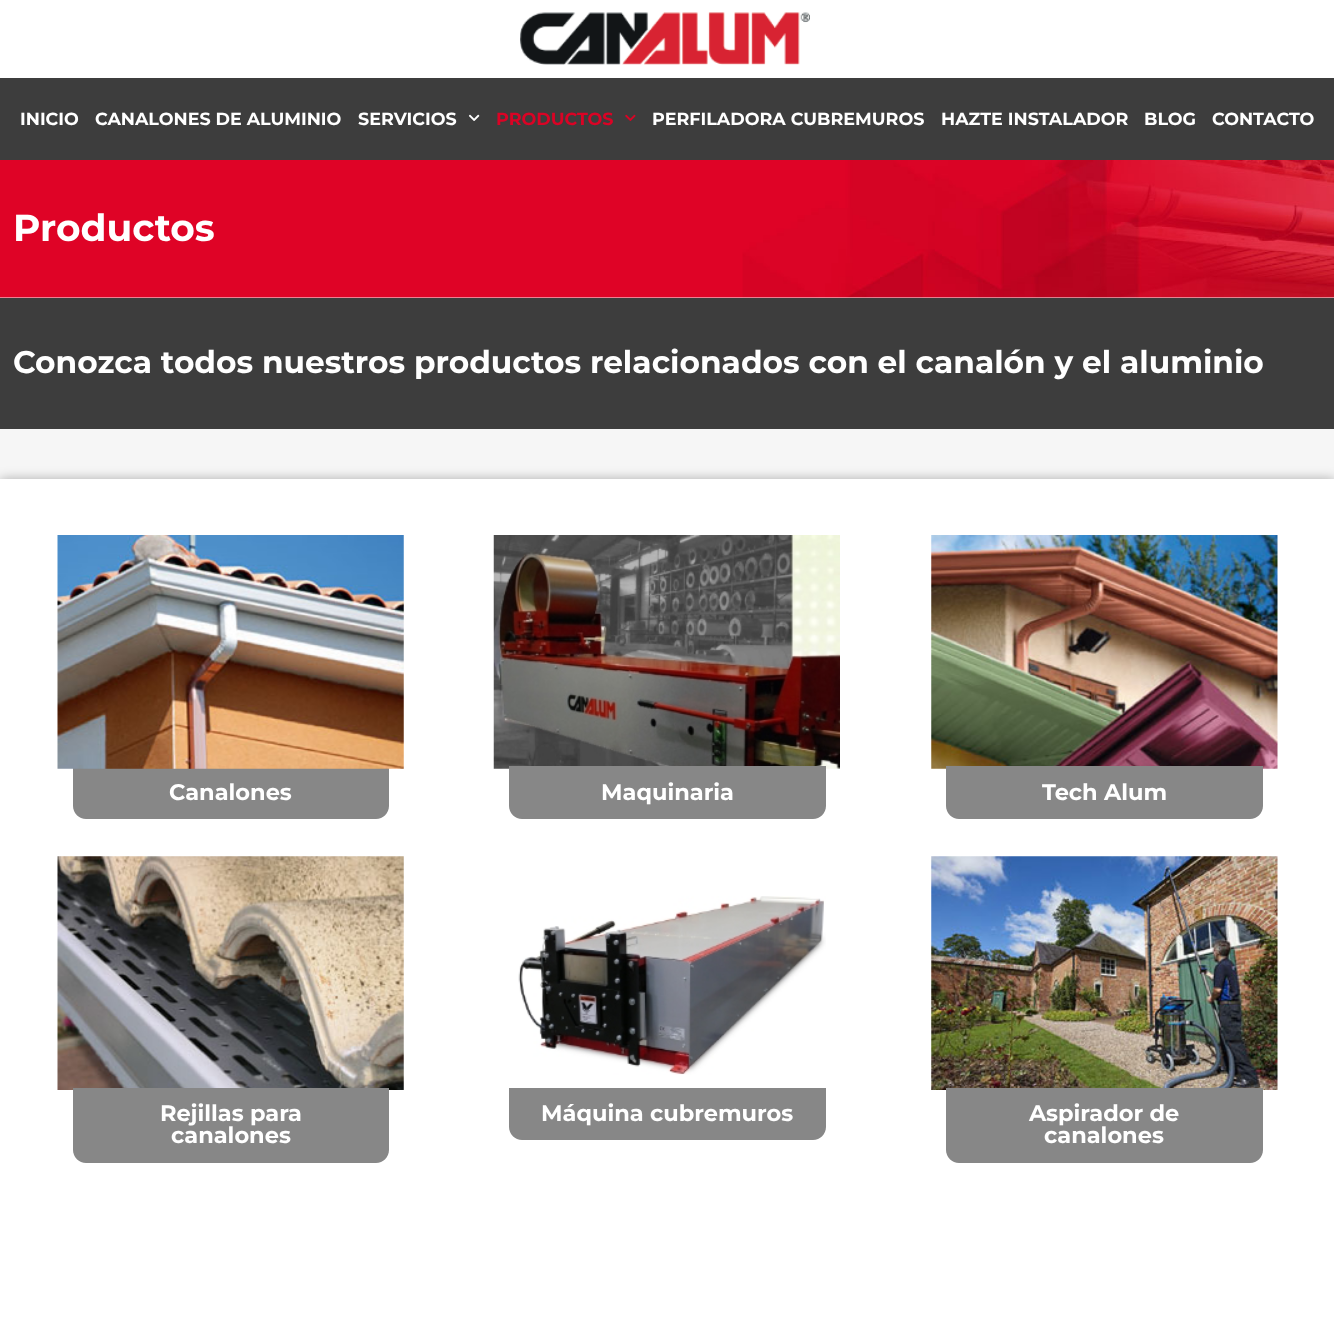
<?xml version="1.0" encoding="UTF-8"?>
<svg xmlns="http://www.w3.org/2000/svg" xmlns:xlink="http://www.w3.org/1999/xlink" width="1334" height="1319">
  <rect width="100%" height="100%" fill="#ffffff" />
  <image x="520" y="12" width="290" height="53" xlink:href="image1.png" />
  <rect y="78" width="1334" height="82" fill="#3d3d3d" />
  <image x="468" y="114" width="12" height="7" xlink:href="image2.png" />
  <image x="625" y="114" width="11" height="7" xlink:href="image3.png" />
  <image x="0" y="160" width="1334" height="138" xlink:href="image4.png" />
  <rect y="298" width="1334" height="131" fill="#3d3d3d" />
  <rect y="429" width="1334" height="50" fill="#f6f6f6" />
  <rect y="479" width="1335" height="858" fill="#000000" fill-opacity="0.3" filter="blur(6px)" />
  <rect y="479" width="1334" height="840" fill="#ffffff" />
  <path d="M 73 766 h 316 v 40 c 0 7 -6 13 -13 13 h -290 c -7 0 -13 -6 -13 -13 z" fill="#878787" />
  <image x="57" y="535" width="347" height="234" xlink:href="image5.png" />
  <image x="493" y="535" width="347" height="234" xlink:href="image6.png" />
  <path d="M 509 766 h 317 v 40 c 0 7 -6 13 -13 13 h -291 c -7 0 -13 -6 -13 -13 z" fill="#878787" />
  <image x="931" y="535" width="347" height="234" xlink:href="image7.png" />
  <path d="M 946 766 h 317 v 40 c 0 7 -6 13 -13 13 h -291 c -7 0 -13 -6 -13 -13 z" fill="#878787" />
  <image x="57" y="856" width="347" height="234" xlink:href="image8.png" />
  <path d="M 73 1088 h 316 v 62 c 0 7 -6 13 -13 13 h -290 c -7 0 -13 -6 -13 -13 z" fill="#878787" />
  <image x="518" y="896" width="308" height="179" xlink:href="image9.png" />
  <path d="M 509 1088 h 317 v 39 c 0 7 -6 13 -13 13 h -291 c -7 0 -13 -6 -13 -13 z" fill="#878787" />
  <image x="931" y="856" width="347" height="234" xlink:href="image10.png" />
  <path d="M 946 1088 h 317 v 62 c 0 7 -6 13 -13 13 h -291 c -7 0 -13 -6 -13 -13 z" fill="#878787" />
  <text x="20" y="125" style="font-family: Montserrat; font-size: 17.5px; font-weight: bold; fill: #ffffff">INICIO</text>
  <text x="95" y="125" style="font-family: Montserrat; font-size: 17.5px; font-weight: bold; fill: #ffffff">CANALONES DE ALUMINIO</text>
  <text x="358" y="125" style="font-family: Montserrat; font-size: 17.5px; font-weight: bold; fill: #ffffff">SERVICIOS</text>
  <text x="496" y="125" style="font-family: Montserrat; font-size: 17.5px; font-weight: bold; fill: #da0325">PRODUCTOS</text>
  <text x="652" y="125" style="font-family: Montserrat; font-size: 17.5px; font-weight: bold; fill: #ffffff">PERFILADORA CUBREMUROS</text>
  <text x="941" y="125" style="font-family: Montserrat; font-size: 17.5px; font-weight: bold; fill: #ffffff">HAZTE INSTALADOR</text>
  <text x="1144" y="125" style="font-family: Montserrat; font-size: 17.5px; font-weight: bold; fill: #ffffff">BLOG</text>
  <text x="1212" y="125" style="font-family: Montserrat; font-size: 17.5px; font-weight: bold; fill: #ffffff">CONTACTO</text>
  <text x="13" y="241" style="font-family: Montserrat; font-size: 37.5px; font-weight: bold; fill: #ffffff">Productos</text>
  <text x="13" y="373" style="font-family: Montserrat; font-size: 31.25px; font-weight: bold; fill: #ffffff">Conozca todos nuestros productos relacionados con el canalón y el aluminio</text>
  <text x="169" y="800" style="font-family: Montserrat; font-size: 22.5px; font-weight: bold; fill: #ffffff">Canalones</text>
  <text x="601" y="800" style="font-family: Montserrat; font-size: 22.5px; font-weight: bold; fill: #ffffff">Maquinaria</text>
  <text x="1042" y="800" style="font-family: Montserrat; font-size: 22.5px; font-weight: bold; fill: #ffffff">Tech Alum</text>
  <text x="160" y="1121" style="font-family: Montserrat; font-size: 22.5px; font-weight: bold; fill: #ffffff">Rejillas para</text>
  <text x="171" y="1143" style="font-family: Montserrat; font-size: 22.5px; font-weight: bold; fill: #ffffff">canalones</text>
  <text x="541" y="1121" style="font-family: Montserrat; font-size: 22.5px; font-weight: bold; fill: #ffffff">Máquina cubremuros</text>
  <text x="1029" y="1121" style="font-family: Montserrat; font-size: 22.5px; font-weight: bold; fill: #ffffff">Aspirador de</text>
  <text x="1044" y="1143" style="font-family: Montserrat; font-size: 22.5px; font-weight: bold; fill: #ffffff">canalones</text>
</svg>
